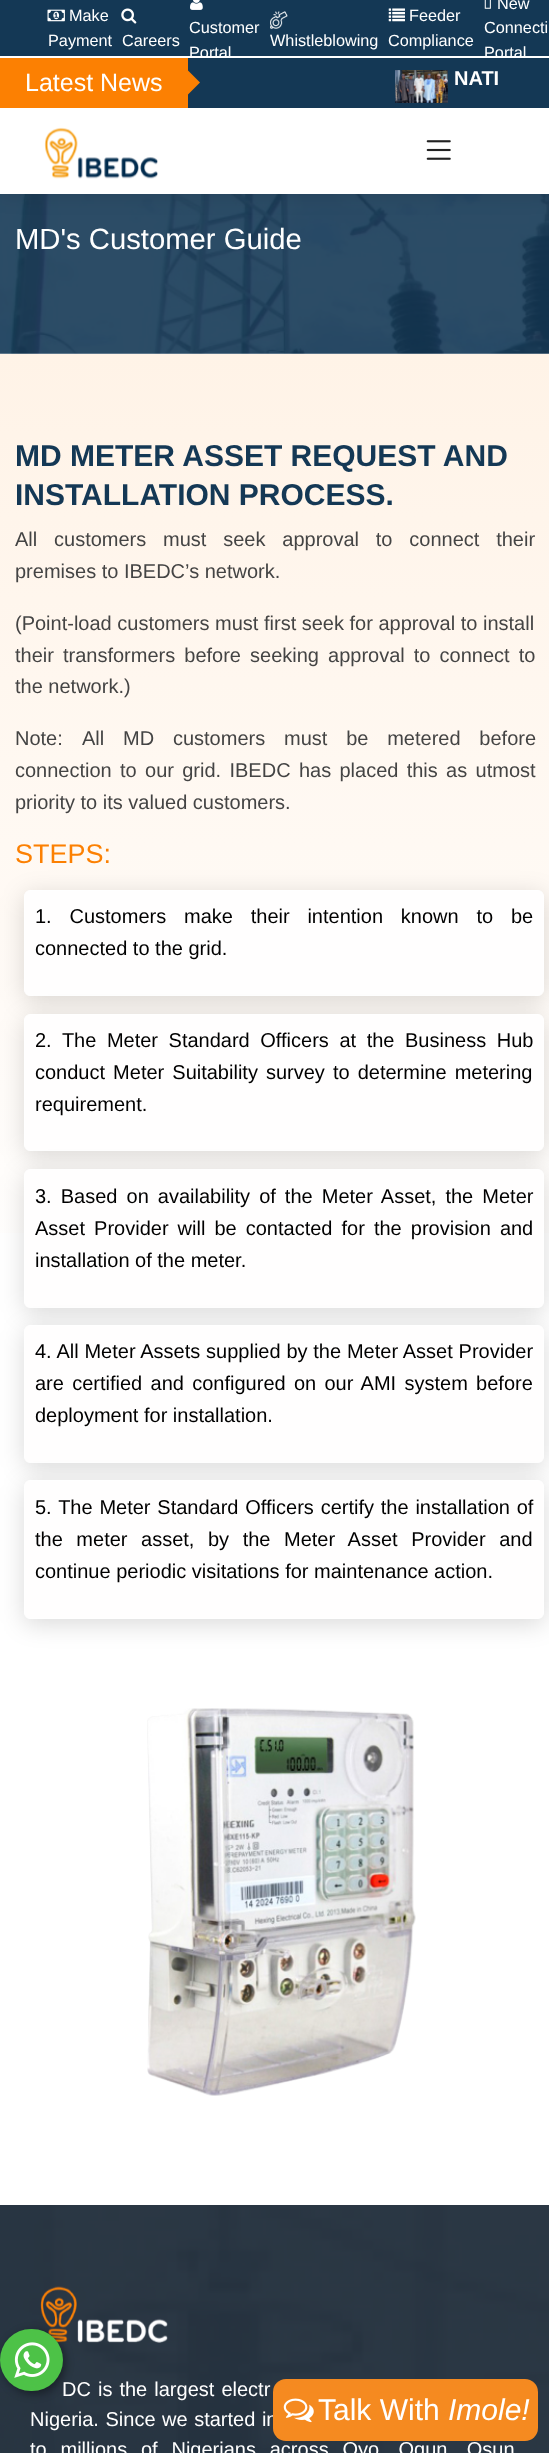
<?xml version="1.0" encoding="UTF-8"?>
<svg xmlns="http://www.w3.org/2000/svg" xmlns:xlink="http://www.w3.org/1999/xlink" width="549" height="2453">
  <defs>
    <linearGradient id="g1" gradientUnits="userSpaceOnUse" x1="275" y1="354" x2="275" y2="2205"><stop offset="0" stop-color="#fff3e7" /><stop offset="0.53" stop-color="#ffffff" /><stop offset="1" stop-color="#ffffff" /></linearGradient>
    <clipPath id="clip1"><rect width="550" height="56" /></clipPath>
  </defs>
  <rect width="100%" height="100%" fill="#ffffff" />
  <rect y="2205" width="549" height="248" fill="#2b3744" />
  <rect width="549" height="56" fill="#143855" />
  <image x="47" y="9" width="18" height="13" xlink:href="image1.png" />
  <image x="121" y="8" width="16" height="16" xlink:href="image2.png" />
  <image x="190" y="0" width="13" height="10" xlink:href="image3.png" />
  <image x="270" y="11" width="18" height="18" xlink:href="image4.png" />
  <image x="388" y="8" width="17" height="14" xlink:href="image5.png" />
  <image x="484" y="0" width="7" height="9" xlink:href="image6.png" />
  <image x="0" y="194" width="549" height="160" xlink:href="image10.png" />
  <rect y="109" width="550" height="87" fill="#000000" fill-opacity="0.1" filter="blur(9.5px)" />
  <rect x="188" y="58" width="361" height="50" fill="#143855" />
  <rect y="58" width="188" height="50" fill="#fc8002" />
  <path d="M 187.5 95 v -25 l 12.5 12.5 z" fill="#fc8002" />
  <image x="395" y="70" width="53" height="33" xlink:href="image7.png" />
  <rect y="108" width="549" height="86" fill="#ffffff" />
  <image x="44" y="127" width="114" height="52" xlink:href="image8.png" />
  <image x="426" y="140" width="25" height="20" xlink:href="image9.png" />
  <rect y="354" width="549" height="879" fill="url(#g1)" />
  <rect x="24" y="895" width="520" height="106" rx="6" fill="#000000" fill-opacity="0.15" filter="blur(12.5px)" />
  <rect x="24.5" y="890.5" width="519" height="105" rx="5.5" fill="#fffefe" stroke="#ffffff" />
  <rect x="24" y="1019" width="520" height="137" rx="6" fill="#000000" fill-opacity="0.15" filter="blur(12.5px)" />
  <rect x="24.5" y="1014.5" width="519" height="136" rx="5.5" fill="#fffefe" stroke="#ffffff" />
  <rect x="24" y="1174" width="520" height="139" rx="6" fill="#000000" fill-opacity="0.15" filter="blur(12.5px)" />
  <rect x="24.5" y="1169.5" width="519" height="138" rx="5.5" fill="#fffefe" stroke="#ffffff" />
  <rect x="24" y="1330" width="520" height="138" rx="6" fill="#000000" fill-opacity="0.15" filter="blur(12.5px)" />
  <rect x="24.5" y="1325.5" width="519" height="137" rx="5.5" fill="#fffefe" stroke="#ffffff" />
  <rect x="24" y="1485" width="520" height="139" rx="6" fill="#000000" fill-opacity="0.15" filter="blur(12.5px)" />
  <rect x="24.5" y="1480.5" width="519" height="138" rx="5.5" fill="#fffefe" stroke="#ffffff" />
  <image x="147" y="1708" width="269" height="388" xlink:href="image11.png" />
  <image x="0" y="2205" width="549" height="248" xlink:href="image13.png" />
  <image x="40" y="2286" width="128" height="57" xlink:href="image14.png" />
  <rect x="3" y="2331" width="62" height="63" rx="31" fill="#000000" fill-opacity="0.4" filter="blur(4px)" />
  <rect y="2329" width="63" height="62" rx="31" fill="#4dc247" />
  <image x="14" y="2342" width="36" height="36" xlink:href="image12.png" />
  <text x="69" y="21" style="font-family: Liberation Sans; font-size: 16.25px; fill: #ffffff">Make</text>
  <text x="48" y="46" style="font-family: Liberation Sans; font-size: 16.25px; fill: #ffffff">Payment</text>
  <text x="122" y="46" style="font-family: Liberation Sans; font-size: 16.25px; fill: #ffffff">Careers</text>
  <text x="189" y="33" style="font-family: Liberation Sans; font-size: 16.25px; fill: #ffffff">Customer</text>
  <g clip-path="url(#clip1)">
    <text x="189" y="58" style="font-family: Liberation Sans; font-size: 16.25px; fill: #ffffff">Portal</text>
  </g>
  <text x="270" y="46" style="font-family: Liberation Sans; font-size: 16.25px; fill: #ffffff">Whistleblowing</text>
  <text x="409" y="21" style="font-family: Liberation Sans; font-size: 16.25px; fill: #ffffff">Feeder</text>
  <text x="388" y="46" style="font-family: Liberation Sans; font-size: 16.25px; fill: #ffffff">Compliance</text>
  <text x="497" y="9" style="font-family: Liberation Sans; font-size: 16.25px; fill: #ffffff">New</text>
  <text x="484" y="33" style="font-family: Liberation Sans; font-size: 16.25px; fill: #ffffff">Connecti</text>
  <g clip-path="url(#clip1)">
    <text x="484" y="58" style="font-family: Liberation Sans; font-size: 16.25px; fill: #ffffff">Portal</text>
  </g>
  <text x="25" y="91" style="font-family: Liberation Sans; font-size: 25px; fill: #ffffff">Latest News</text>
  <text x="454" y="85" style="font-family: Liberation Sans; font-size: 20px; font-weight: bold; fill: #ffffff">NATI</text>
  <text x="15" y="249" style="font-family: Liberation Sans; font-size: 29.25px; fill: #ffffff">MD's Customer Guide</text>
  <text x="15" y="466" style="font-family: Liberation Sans; font-size: 30px; font-weight: bold; fill: #143855">MD METER ASSET REQUEST AND</text>
  <text x="15" y="505" style="font-family: Liberation Sans; font-size: 30px; font-weight: bold; fill: #143855">INSTALLATION PROCESS.</text>
  <text x="15" y="546" word-spacing="11.25" style="font-family: Liberation Sans; font-size: 20px; fill: #444444">All customers must seek approval to connect their</text>
  <text x="15" y="578" style="font-family: Liberation Sans; font-size: 20px; fill: #444444">premises to IBEDC’s network.</text>
  <text x="15" y="630" style="font-family: Liberation Sans; font-size: 20px; fill: #444444">(Point-load customers must first seek for approval to install</text>
  <text x="15" y="662" word-spacing="3.5" style="font-family: Liberation Sans; font-size: 20px; fill: #444444">their transformers before seeking approval to connect to</text>
  <text x="15" y="693" style="font-family: Liberation Sans; font-size: 20px; fill: #444444">the network.)</text>
  <text x="15" y="745" style="font-family: Liberation Sans; font-size: 20px; fill: #444444">Note:</text>
  <text x="82" y="745" word-spacing="13.25" style="font-family: Liberation Sans; font-size: 20px; fill: #444444">All MD customers must be metered before</text>
  <text x="15" y="777" word-spacing="2.75" style="font-family: Liberation Sans; font-size: 20px; fill: #444444">connection to our grid. IBEDC has placed this as utmost</text>
  <text x="15" y="809" style="font-family: Liberation Sans; font-size: 20px; fill: #444444">priority to its valued customers.</text>
  <text x="15" y="863" style="font-family: Liberation Sans; font-size: 27px; fill: #fc8002">STEPS:</text>
  <text x="35" y="923" word-spacing="12.25" style="font-family: Liberation Sans; font-size: 20px; fill: #000000">1. Customers make their intention known to be</text>
  <text x="35" y="955" style="font-family: Liberation Sans; font-size: 20px; fill: #000000">connected to the grid.</text>
  <text x="35" y="1047" word-spacing="5" style="font-family: Liberation Sans; font-size: 20px; fill: #000000">2. The Meter Standard Officers at the Business Hub</text>
  <text x="35" y="1079" word-spacing="2.5" style="font-family: Liberation Sans; font-size: 20px; fill: #000000">conduct Meter Suitability survey to determine metering</text>
  <text x="35" y="1111" style="font-family: Liberation Sans; font-size: 20px; fill: #000000">requirement.</text>
  <text x="35" y="1203" word-spacing="3.5" style="font-family: Liberation Sans; font-size: 20px; fill: #000000">3. Based on availability of the Meter Asset, the Meter</text>
  <text x="35" y="1235" word-spacing="3.5" style="font-family: Liberation Sans; font-size: 20px; fill: #000000">Asset Provider will be contacted for the provision and</text>
  <text x="35" y="1267" style="font-family: Liberation Sans; font-size: 20px; fill: #000000">installation of the meter.</text>
  <text x="35" y="1358" word-spacing="0.25" style="font-family: Liberation Sans; font-size: 20px; fill: #000000">4. All Meter Assets supplied by the Meter Asset Provider</text>
  <text x="35" y="1390" word-spacing="2.75" style="font-family: Liberation Sans; font-size: 20px; fill: #000000">are certified and configured on our AMI system before</text>
  <text x="35" y="1422" style="font-family: Liberation Sans; font-size: 20px; fill: #000000">deployment for installation.</text>
  <text x="35" y="1514" word-spacing="1.25" style="font-family: Liberation Sans; font-size: 20px; fill: #000000">5. The Meter Standard Officers certify the installation of</text>
  <text x="35" y="1546" word-spacing="8" style="font-family: Liberation Sans; font-size: 20px; fill: #000000">the meter asset, by the Meter Asset Provider and</text>
  <text x="35" y="1578" style="font-family: Liberation Sans; font-size: 20px; fill: #000000">continue periodic visitations for maintenance action.</text>
  <text x="62" y="2396" word-spacing="1.5" style="font-family: Liberation Sans; font-size: 20px; fill: #ffffff">DC is the largest electr</text>
  <text x="30" y="2426" word-spacing="1" style="font-family: Liberation Sans; font-size: 20px; fill: #ffffff">Nigeria. Since we started in</text>
  <text x="30" y="2456" word-spacing="8.25" style="font-family: Liberation Sans; font-size: 20px; fill: #ffffff">to millions of Nigerians across Oyo, Ogun, Osun</text>
  <rect x="273" y="2379" width="265" height="62" rx="13" fill="#f58a20" />
  <image x="283" y="2398" width="31" height="25" xlink:href="image15.png" />
  <text x="318" y="2420" style="font-family: Liberation Sans; font-size: 30px; fill: #ffffff">Talk With</text>
  <text x="448" y="2420" style="font-family: Liberation Sans; font-size: 30px; font-style: italic; fill: #ffffff">Imole!</text>
</svg>
